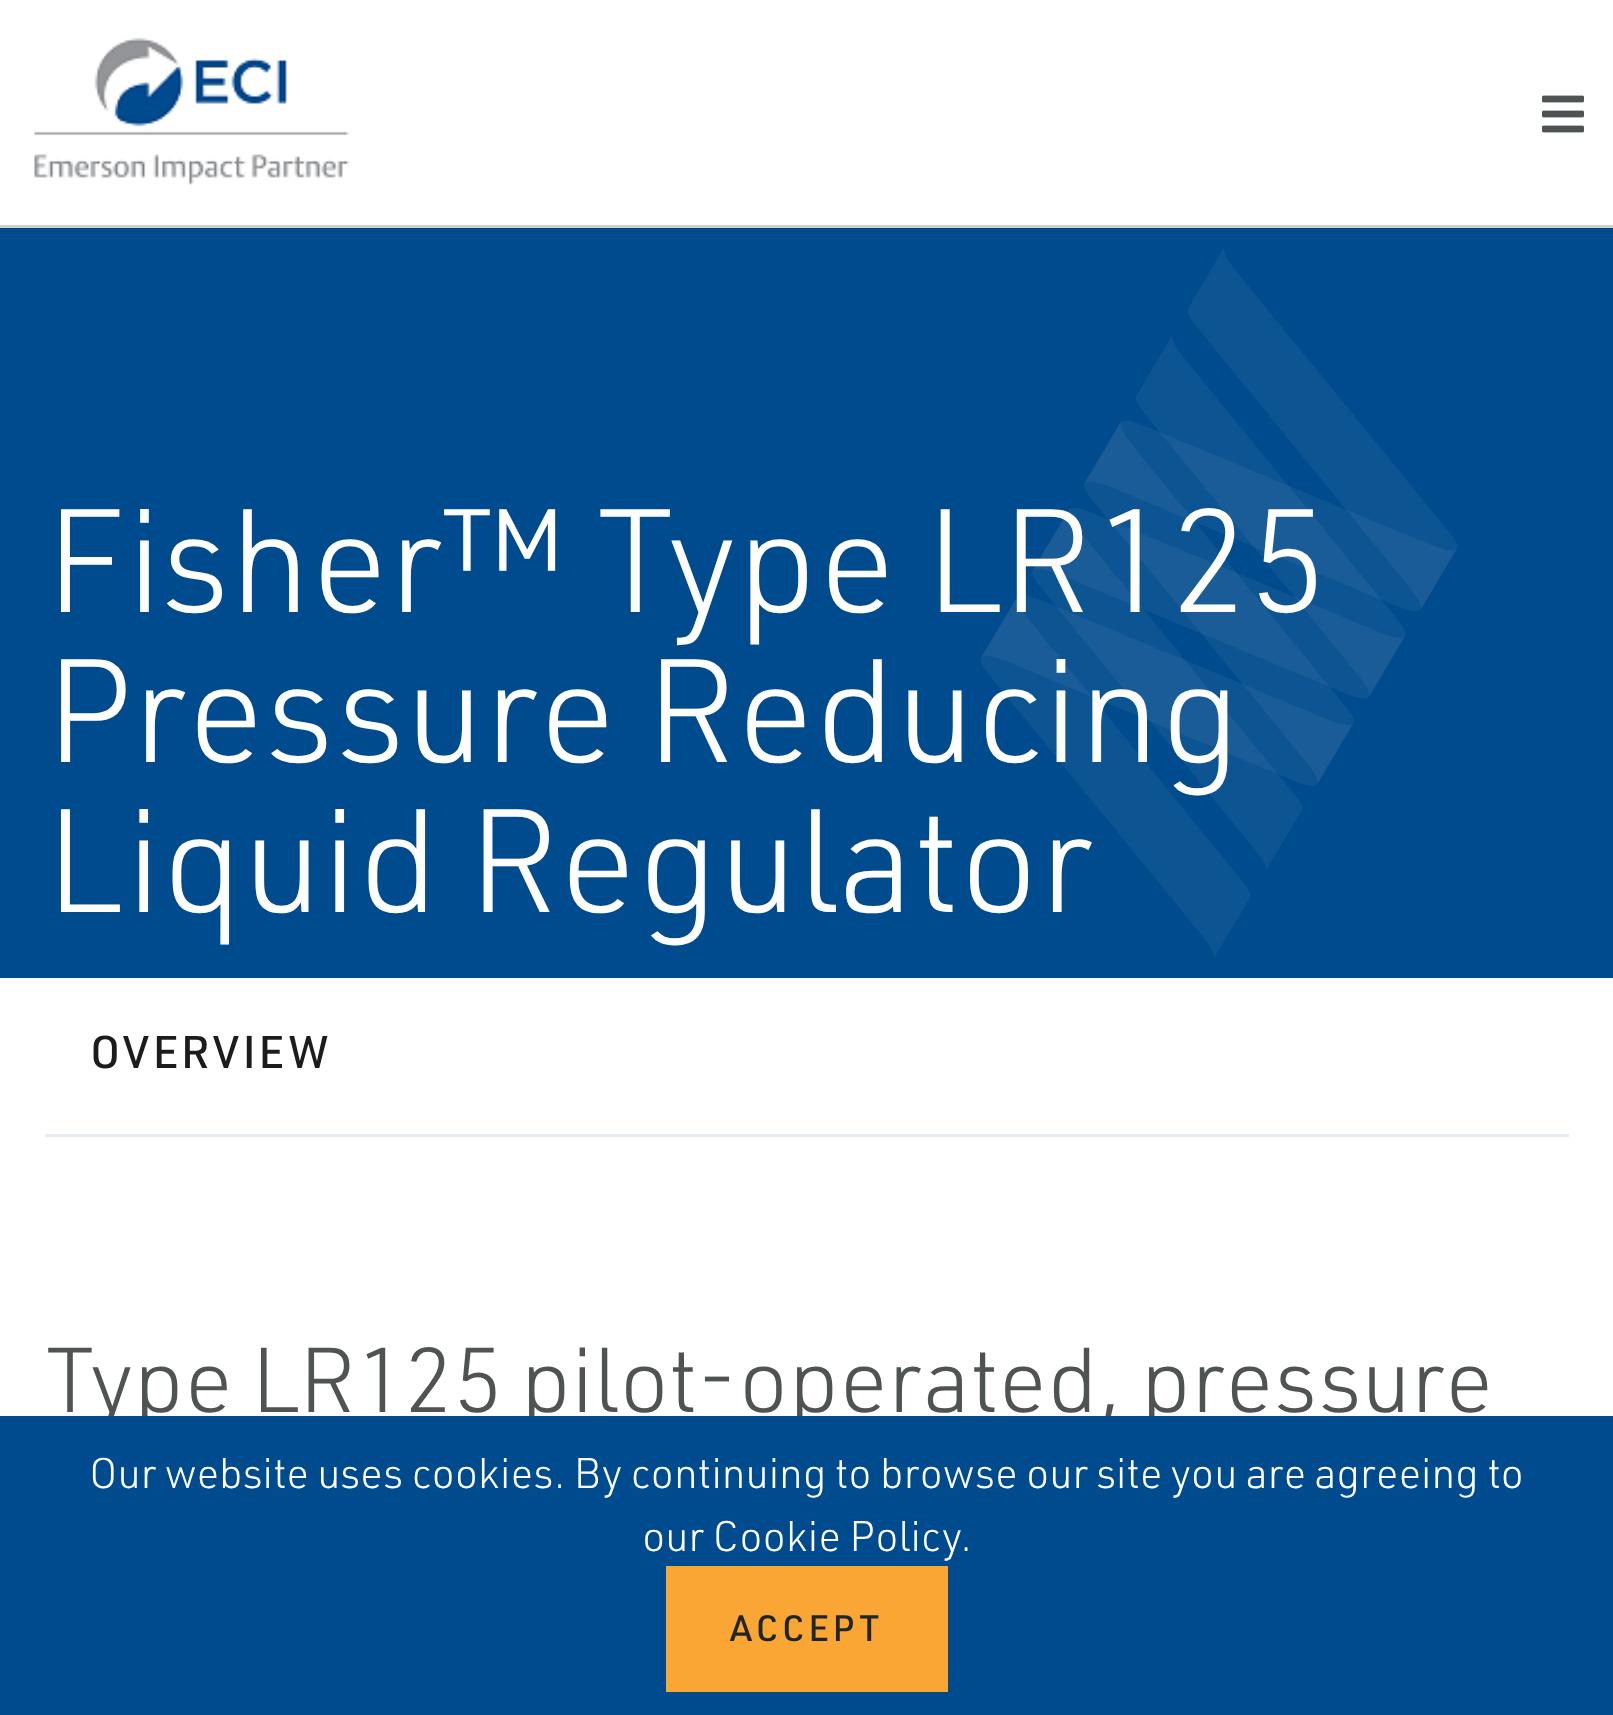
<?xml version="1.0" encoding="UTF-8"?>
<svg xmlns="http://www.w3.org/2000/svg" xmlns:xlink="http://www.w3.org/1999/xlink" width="1613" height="1715">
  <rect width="100%" height="100%" fill="#ffffff" />
  <rect y="225" width="1613" height="3" fill="#cacfd0" />
  <image x="34" y="37" width="316" height="148" xlink:href="image1.png" />
  <image x="1542" y="95" width="42" height="38" xlink:href="image2.png" />
  <rect y="228" width="1613" height="750" fill="#004b8d" />
  <image x="980" y="249" width="478" height="708" xlink:href="image3.png" />
  <rect x="45" y="1134" width="1524" height="3" fill="#e5edf3" />
  <text x="45" y="612" style="font-family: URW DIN; font-size: 144px; font-weight: 300; fill: #ffffff">Fisher™ Type LR125</text>
  <text x="45" y="762" style="font-family: URW DIN; font-size: 144px; font-weight: 300; fill: #ffffff">Pressure Reducing</text>
  <text x="45" y="912" style="font-family: URW DIN; font-size: 144px; font-weight: 300; fill: #ffffff">Liquid Regulator</text>
  <text x="90" y="1068" style="font-family: URW DIN; font-size: 45px; font-weight: 500; letter-spacing: 2.25px; fill: #1c1c1c">OVERVIEW</text>
  <text x="45" y="1412" style="font-family: URW DIN; font-size: 90px; font-weight: 300; fill: #505354">Type LR125 pilot-operated, pressure</text>
  <rect y="1416" width="1613" height="299" fill="#004b8d" />
  <text x="89" y="1488" style="font-family: URW DIN; font-size: 42px; font-weight: 300; fill: #ffffff">Our website uses cookies. By continuing to browse our site you are agreeing to</text>
  <text x="642" y="1551" style="font-family: URW DIN; font-size: 42px; font-weight: 300; fill: #ffffff">our Cookie Policy.</text>
  <rect x="666" y="1566" width="282" height="126" fill="#faa634" />
  <text x="730" y="1641" style="font-family: URW DIN; font-size: 36px; font-weight: 500; letter-spacing: 3.5px; fill: #212529">ACCEPT</text>
</svg>
